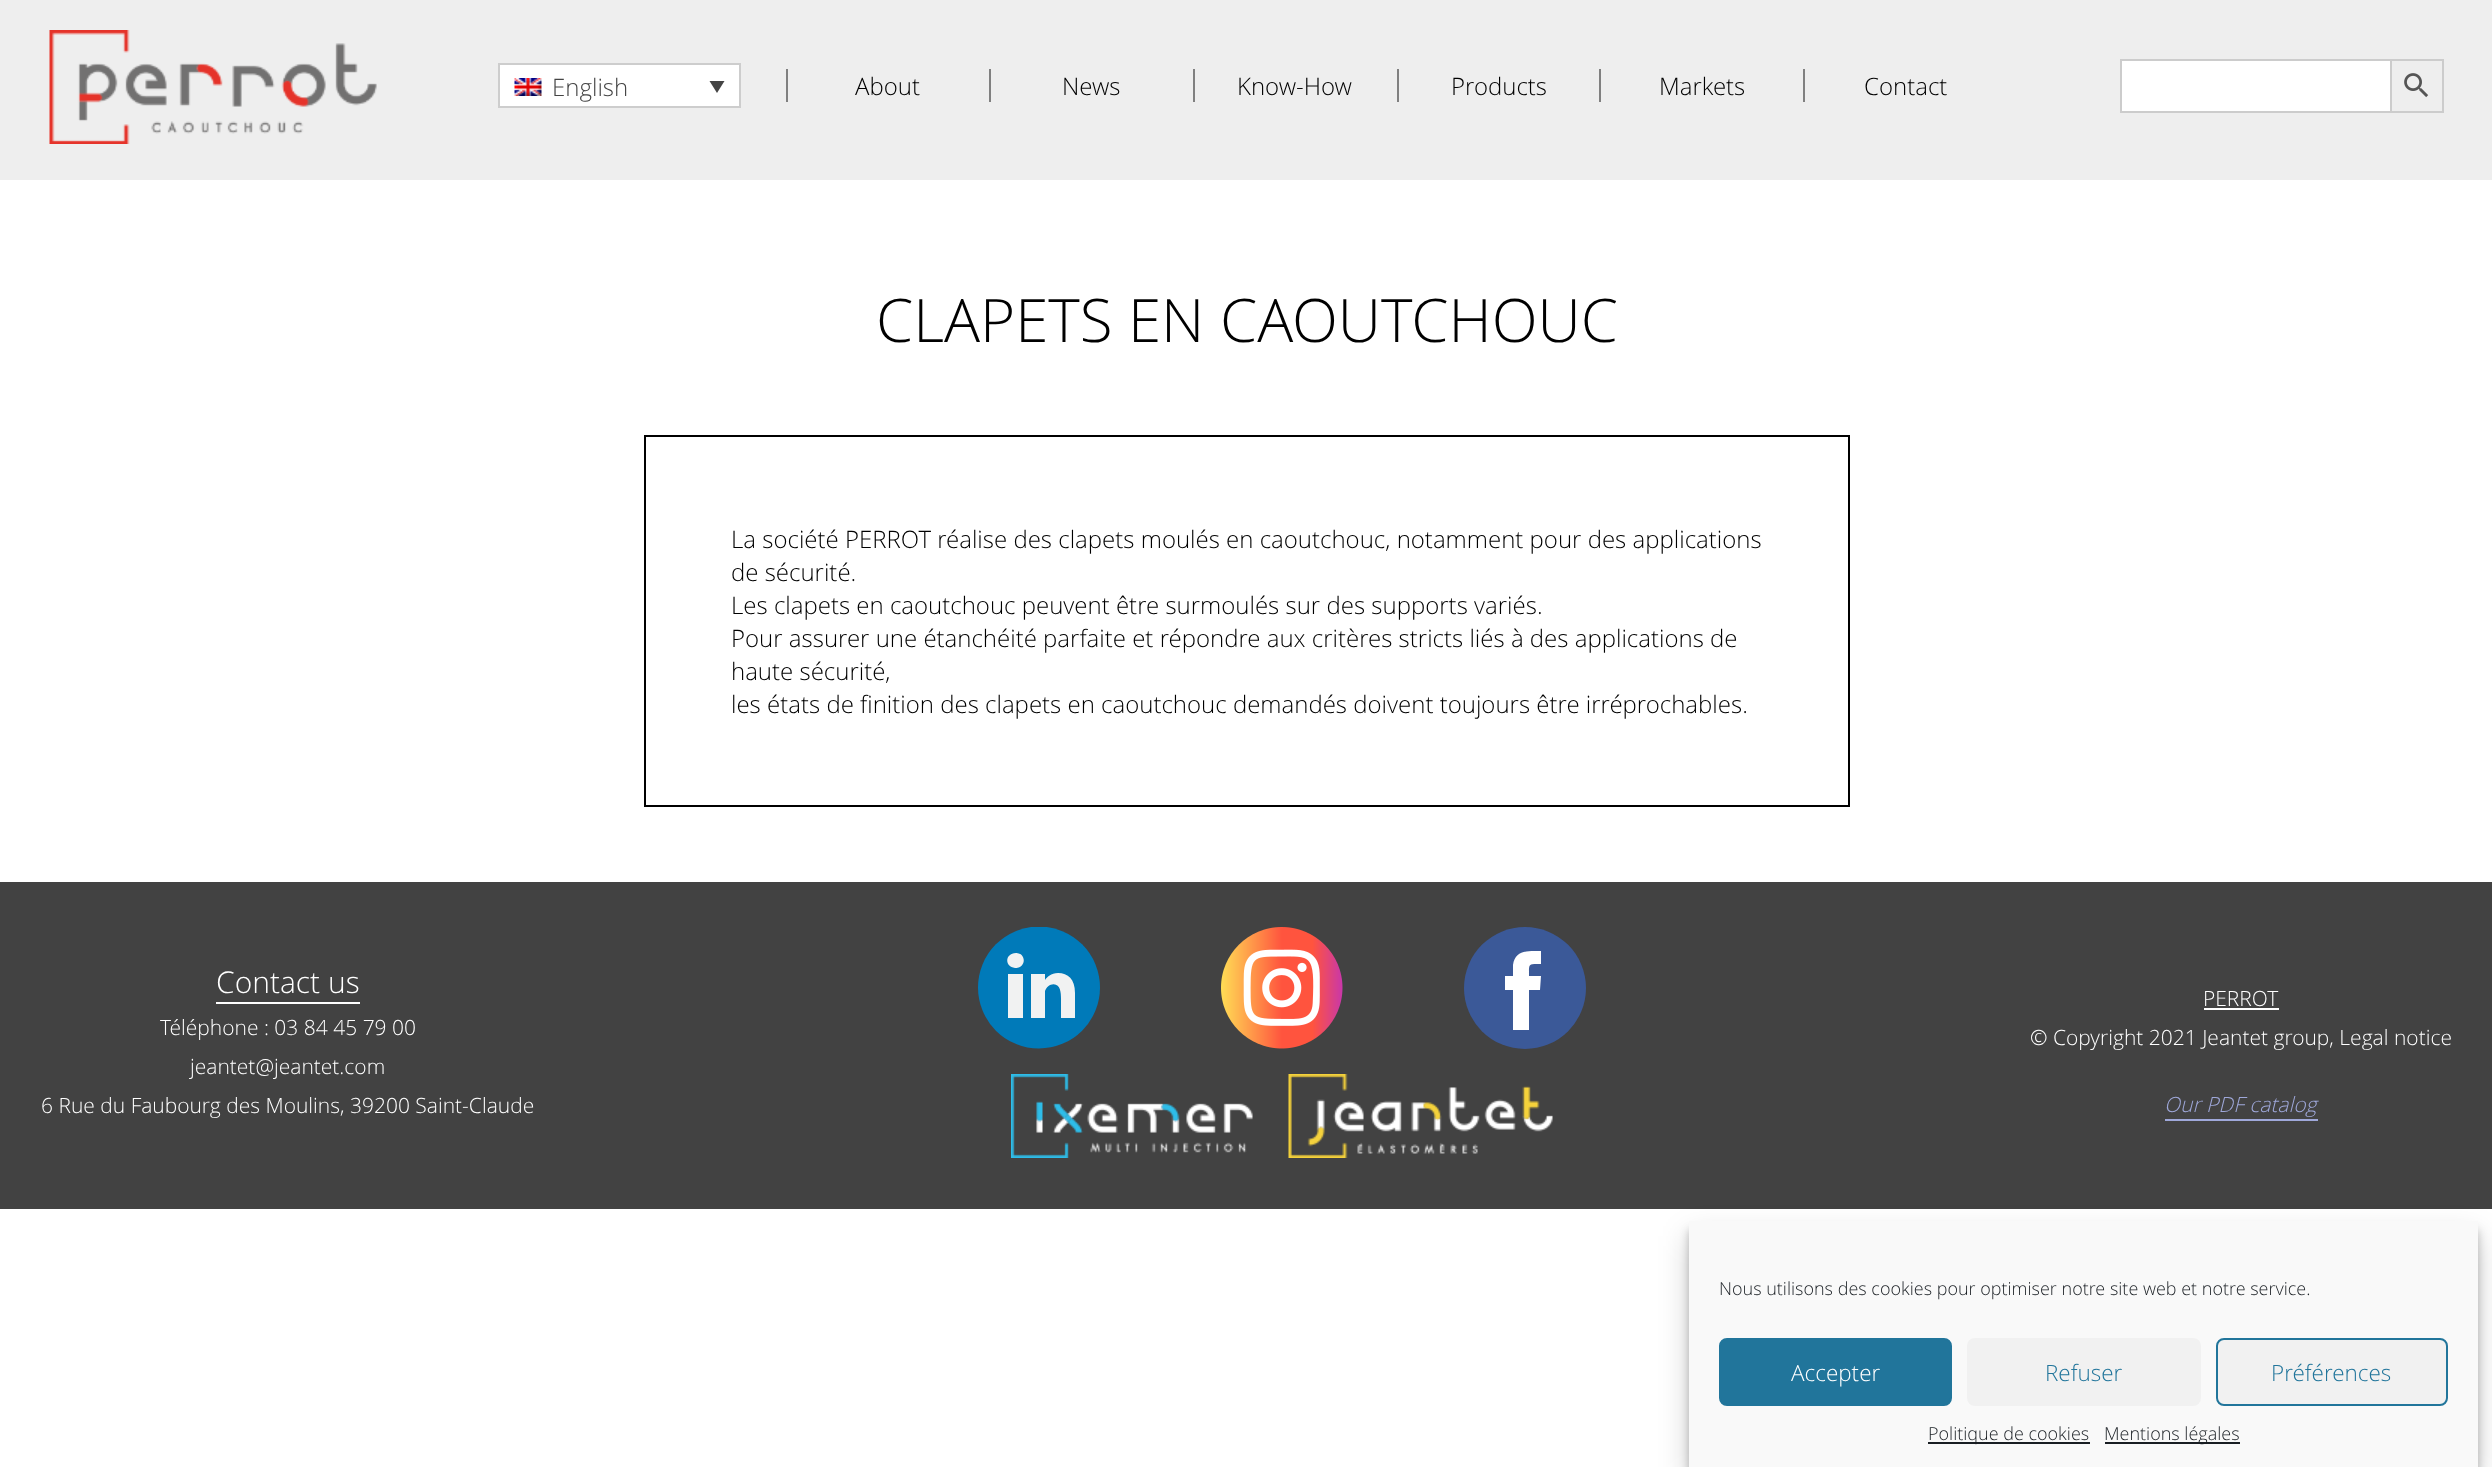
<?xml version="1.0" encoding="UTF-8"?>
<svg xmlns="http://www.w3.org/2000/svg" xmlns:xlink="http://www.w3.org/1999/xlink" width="2492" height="1467">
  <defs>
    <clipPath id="clip1"><rect x="978" y="927" width="122" height="122" /></clipPath>
  </defs>
  <rect width="100%" height="100%" fill="#ffffff" />
  <rect width="2492" height="180" fill="#eeeeee" />
  <image x="49" y="30" width="328" height="114" xlink:href="image1.png" />
  <rect x="499" y="64" width="241" height="43" fill="#ffffff" stroke="#cdcdcd" stroke-width="2" />
  <image x="514" y="78" width="28" height="18" xlink:href="image2.png" />
  <path d="M 709.5 81 h 15 l -7.5 12 z" fill="#444444" />
  <rect x="786" y="69" width="2" height="33" fill="#808080" />
  <rect x="989" y="69" width="2" height="33" fill="#808080" />
  <rect x="1193" y="69" width="2" height="33" fill="#808080" />
  <rect x="1397" y="69" width="2" height="33" fill="#808080" />
  <rect x="1599" y="69" width="2" height="33" fill="#808080" />
  <rect x="1803" y="69" width="2" height="33" fill="#808080" />
  <rect x="2122" y="61" width="268" height="50" fill="#ffffff" />
  <rect x="2120" y="59" width="270" height="2" fill="#cccccc" />
  <rect x="2120" y="111" width="270" height="2" fill="#cccccc" />
  <rect x="2120" y="59" width="2" height="54" fill="#cccccc" />
  <rect x="2391" y="60" width="52" height="52" fill="none" stroke="#cccccc" stroke-width="2" />
  <image x="2404" y="73" width="25" height="25" xlink:href="image3.png" />
  <rect x="645" y="436" width="1204" height="370" fill="none" stroke="#000000" stroke-width="2" />
  <rect y="882" width="2492" height="327" fill="#424242" />
  <rect x="216" y="1002" width="144" height="2" fill="#ffffff" />
  <g clip-path="url(#clip1)">
    <circle cx="1039" cy="987.5" r="61" fill="#007ab9" />
  </g>
  <path d="M 1075 993 v 25 h -14 v -16 c 0 -6 1 -21 -11 -17 c -2 1 -4 3 -5 6 v 27 h -14 v -44 h 14 v 6 c 2 -3 6 -7 13 -7 c 10 0 17 6 17 20 z m -59 -40 c -11 0 -12 14 -1 15 c 11 1 12 -15 1 -15 z m -8 65 h 15 v -44 h -15 z" fill="#f1f2f2" />
  <image x="1221" y="927" width="122" height="122" xlink:href="image4.png" />
  <circle cx="1525" cy="988" r="61" fill="#3b5998" />
  <path d="M 1540 990 h -11 v 40 h -16 v -40 h -8 v -14 h 8 v -11 c 2 -16 17 -14 28 -14 v 13 c -13 0 -12 -1 -12 12 h 12 z" fill="#ffffff" />
  <image x="1011" y="1074" width="242" height="84" xlink:href="image5.png" />
  <image x="1288" y="1074" width="265" height="84" xlink:href="image6.png" />
  <rect x="2204" y="1008" width="75" height="2" fill="#ffffff" />
  <rect x="2165" y="1119" width="153" height="2" fill="#9fa8da" />
  <rect x="1689" y="1230" width="789" height="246" fill="#000000" fill-opacity="0.23" filter="blur(4.5px)" />
  <rect x="1689" y="1236" width="789" height="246" fill="#000000" fill-opacity="0.19" filter="blur(15px)" />
  <rect x="1689" y="1221" width="789" height="246" fill="#f9f9f9" />
  <rect x="1720" y="1339" width="231" height="66" rx="7" fill="#21759b" stroke="#21759b" stroke-width="2" />
  <rect x="1967" y="1338" width="234" height="68" rx="8" fill="#f1f1f1" />
  <rect x="2217" y="1339" width="230" height="66" rx="7" fill="#f1f1f1" stroke="#21759b" stroke-width="2" />
  <rect x="1928" y="1442" width="162" height="2" fill="#191e23" />
  <rect x="2105" y="1442" width="135" height="2" fill="#191e23" />
  <text x="552" y="96" style="font-family: Open Sans; font-size: 24px; font-weight: 300; fill: #444444">English</text>
  <text x="855" y="95" style="font-family: Open Sans; font-size: 24px; font-weight: 300; fill: #000000">About</text>
  <text x="1062" y="95" style="font-family: Open Sans; font-size: 24px; font-weight: 300; fill: #000000">News</text>
  <text x="1237" y="95" style="font-family: Open Sans; font-size: 24px; font-weight: 300; fill: #000000">Know-How</text>
  <text x="1451" y="95" style="font-family: Open Sans; font-size: 24px; font-weight: 300; fill: #000000">Products</text>
  <text x="1659" y="95" style="font-family: Open Sans; font-size: 24px; font-weight: 300; fill: #000000">Markets</text>
  <text x="1864" y="95" style="font-family: Open Sans; font-size: 24px; font-weight: 300; fill: #000000">Contact</text>
  <text x="876" y="342" style="font-family: Open Sans; font-size: 60px; font-weight: 300; fill: #000000">CLAPETS EN CAOUTCHOUC</text>
  <text x="731" y="548" style="font-family: Open Sans; font-size: 24px; font-weight: 300; fill: #000000">La société PERROT réalise des clapets moulés en caoutchouc, notamment pour des applications</text>
  <text x="731" y="581" style="font-family: Open Sans; font-size: 24px; font-weight: 300; fill: #000000">de sécurité.</text>
  <text x="731" y="614" style="font-family: Open Sans; font-size: 24px; font-weight: 300; fill: #000000">Les clapets en caoutchouc peuvent être surmoulés sur des supports variés.</text>
  <text x="731" y="647" style="font-family: Open Sans; font-size: 24px; font-weight: 300; fill: #000000">Pour assurer une étanchéité parfaite et répondre aux critères stricts liés à des applications de</text>
  <text x="731" y="680" style="font-family: Open Sans; font-size: 24px; font-weight: 300; fill: #000000">haute sécurité,</text>
  <text x="731" y="713" style="font-family: Open Sans; font-size: 24px; font-weight: 300; fill: #000000">les états de finition des clapets en caoutchouc demandés doivent toujours être irréprochables.</text>
  <text x="216" y="993" style="font-family: Open Sans; font-size: 30px; font-weight: 300; fill: #ffffff">Contact us</text>
  <text x="160" y="1035" style="font-family: Open Sans; font-size: 21px; font-weight: 300; fill: #ffffff">Téléphone : 03 84 45 79 00</text>
  <text x="190" y="1074" style="font-family: Open Sans; font-size: 21px; font-weight: 300; fill: #ffffff">jeantet@jeantet.com</text>
  <text x="41" y="1113" style="font-family: Open Sans; font-size: 21px; font-weight: 300; fill: #ffffff">6 Rue du Faubourg des Moulins, 39200 Saint-Claude</text>
  <text x="2203" y="1006" style="font-family: Open Sans; font-size: 21px; font-weight: 300; fill: #ffffff">PERROT</text>
  <text x="2030" y="1045" style="font-family: Open Sans; font-size: 21px; font-weight: 300; fill: #ffffff">© Copyright 2021 Jeantet group, Legal notice</text>
  <text x="2164" y="1112" style="font-family: Open Sans; font-size: 21px; font-weight: 300; font-style: italic; fill: #9fa8da">Our PDF catalog</text>
  <text x="1719" y="1295" style="font-family: Open Sans; font-size: 18px; font-weight: 300; fill: #191e23">Nous utilisons des cookies pour optimiser notre site web et notre service.</text>
  <text x="1791" y="1381" style="font-family: Open Sans; font-size: 22.5px; font-weight: 300; fill: #ffffff">Accepter</text>
  <text x="2045" y="1381" style="font-family: Open Sans; font-size: 22.5px; font-weight: 300; fill: #21759b">Refuser</text>
  <text x="2271" y="1381" style="font-family: Open Sans; font-size: 22.5px; font-weight: 300; fill: #21759b">Préférences</text>
  <text x="1928" y="1440" style="font-family: Open Sans; font-size: 18px; font-weight: 300; fill: #191e23">Politique de cookies</text>
  <text x="2104" y="1440" style="font-family: Open Sans; font-size: 18px; font-weight: 300; fill: #191e23">Mentions légales</text>
</svg>
